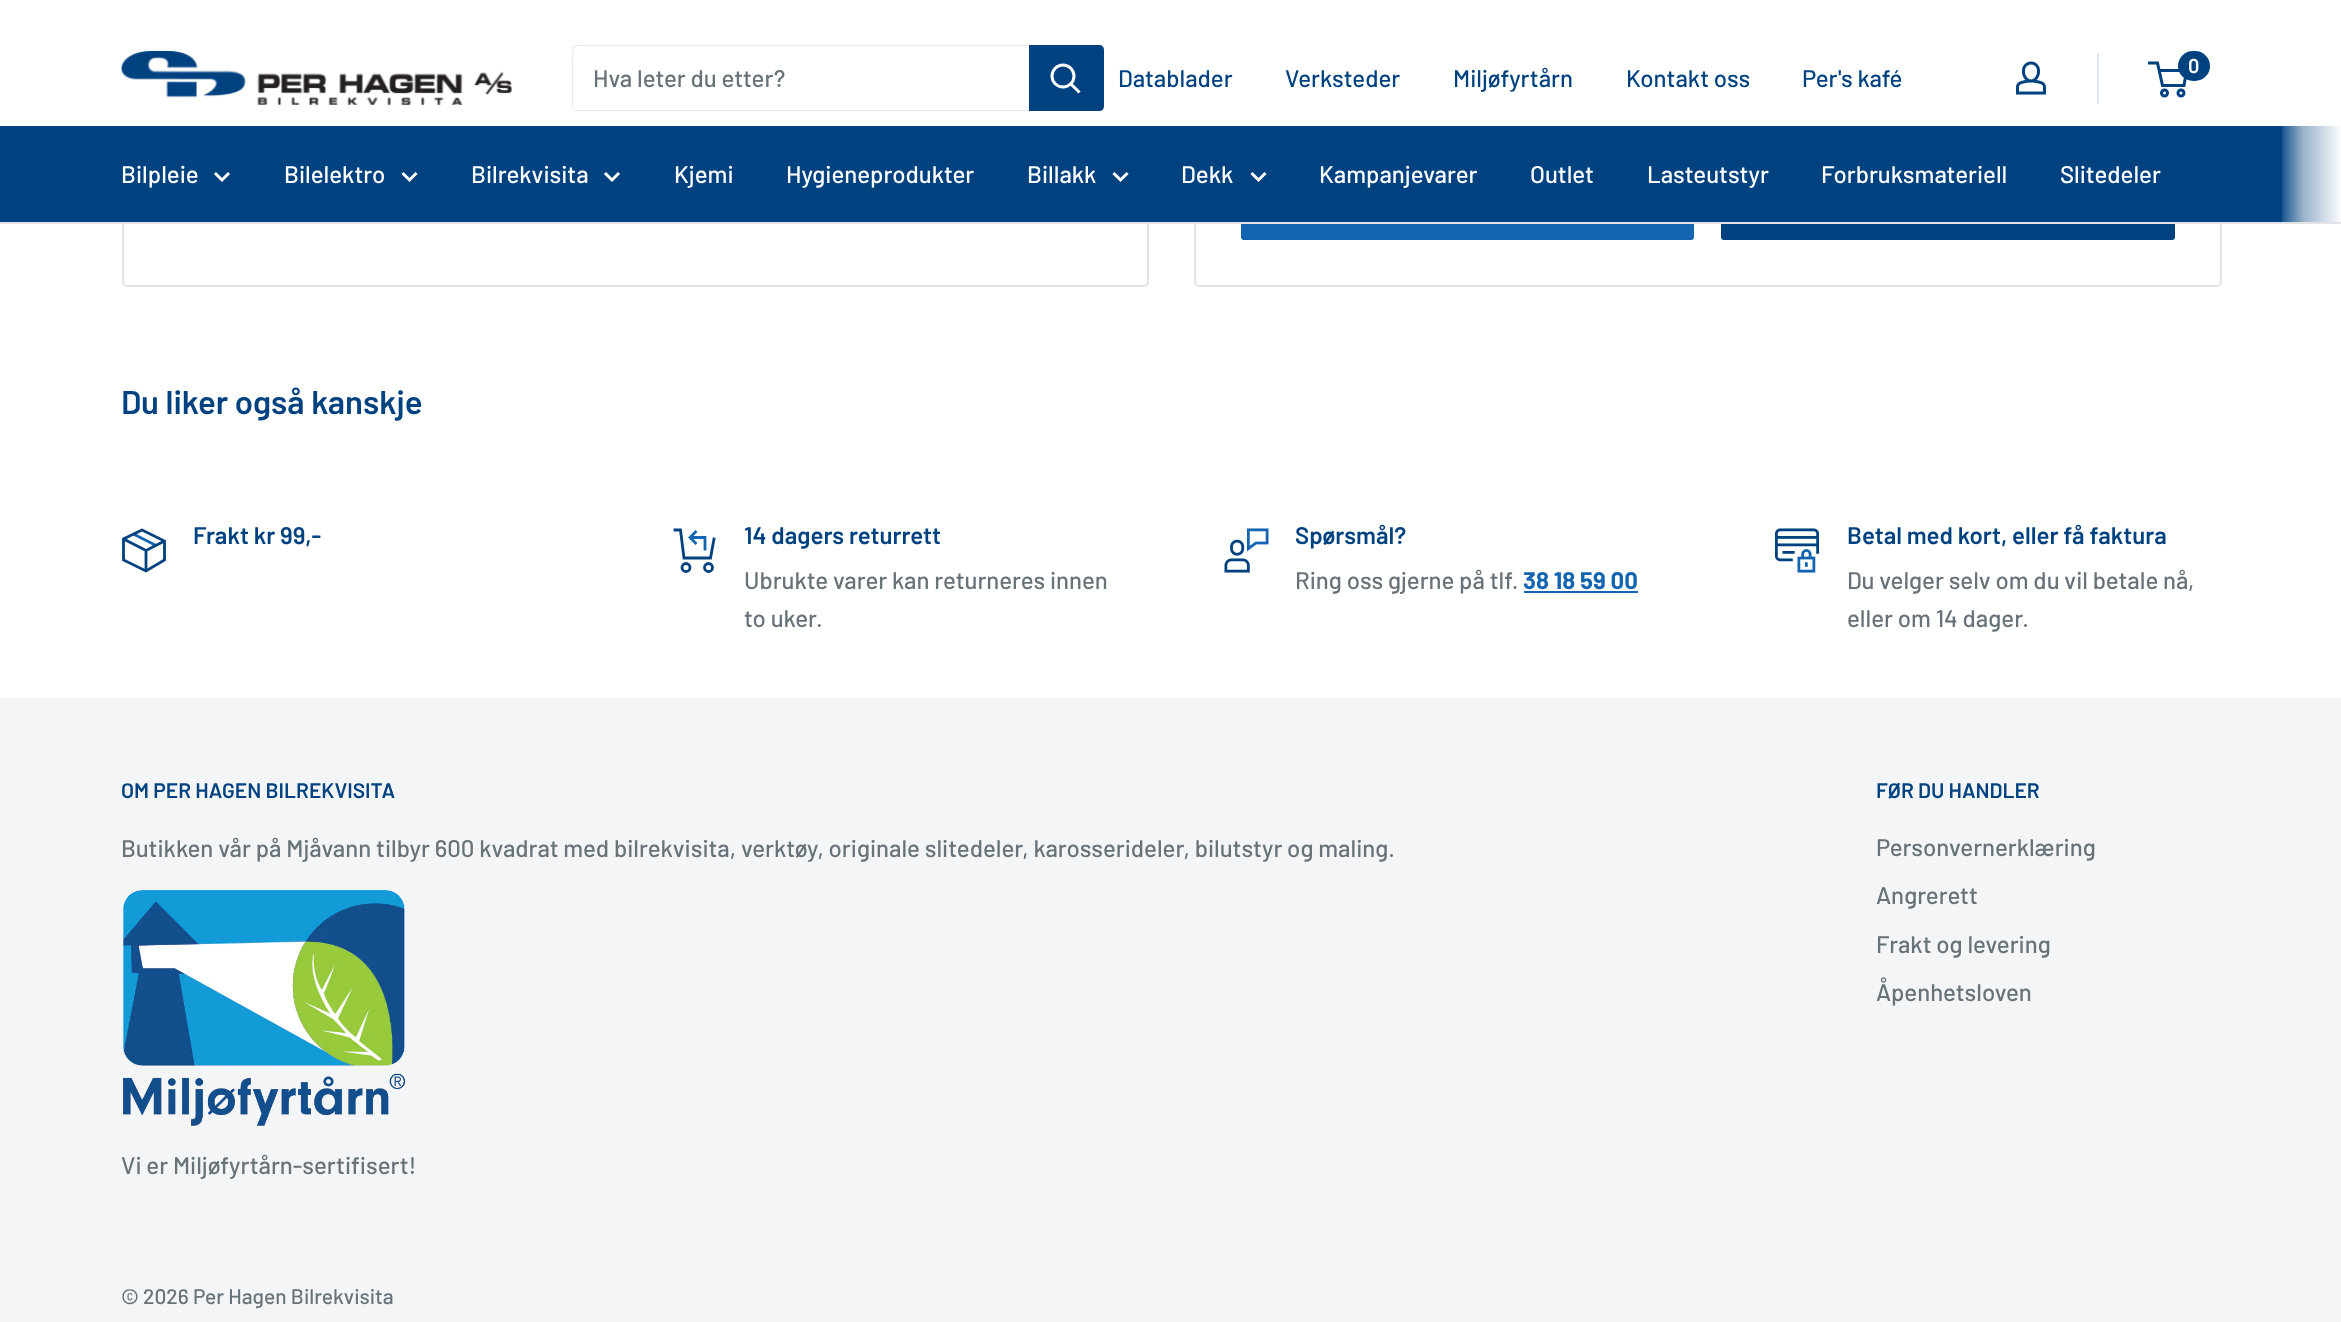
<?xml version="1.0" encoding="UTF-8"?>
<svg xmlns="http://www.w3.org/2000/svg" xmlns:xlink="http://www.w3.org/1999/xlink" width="2341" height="1322">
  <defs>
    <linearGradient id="g1" gradientUnits="userSpaceOnUse" x1="2282" y1="174" x2="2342" y2="174"><stop offset="0" stop-color="#1a558d" /><stop offset="0.35" stop-color="#99b3cc" /><stop offset="1" stop-color="#ffffff" /></linearGradient>
  </defs>
  <rect width="100%" height="100%" fill="#ffffff" />
  <rect x="123" y="66" width="1025" height="220" rx="4" fill="none" stroke="#e1e3e4" stroke-width="2" />
  <rect x="1195" y="-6" width="1026" height="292" rx="4" fill="none" stroke="#e1e3e4" stroke-width="2" />
  <rect x="122" width="2100" height="126" fill="#ffffff" />
  <image x="121" y="51" width="391" height="54" xlink:href="image1.png" />
  <path d="M 574 110 c 1 1 2 1 3 1 h 522 c 3 0 5 -2 5 -5 v -56 c 0 -2 -1 -4 -3 -5 c 1 1 1 2 1 3 v 57 c 0 2 -2 5 -4 5 z" fill="#e3e7fa" />
  <path d="M 578 46 h 523 h 2 c -1 0 -3 -1 -4 -1 h -522 c -3 0 -5 2 -5 5 v 56 c 0 1 0 2 1 3 v -49 c 0 -3 -2 -14 5 -14 z" fill="#e3e7fa" />
  <path d="M 1029 45 h 70 c 3 0 5 2 5 5 v 56 c 0 3 -2 5 -5 5 h -70 z" fill="#004280" />
  <path d="M 1078.5 91.5 l -7.5 -7.5" fill="none" stroke="#ffffff" stroke-width="3" stroke-linecap="square" />
  <circle cx="1063" cy="76" r="11" fill="none" stroke="#ffffff" stroke-width="3" />
  <image x="2016" y="61" width="30" height="34" xlink:href="image2.png" />
  <rect x="2097" y="53" width="2" height="51" fill="#e3e7fa" />
  <circle cx="2164.5" cy="93" r="3" fill="none" stroke="#004280" stroke-width="3" />
  <circle cx="2181" cy="93" r="3" fill="none" stroke="#004280" stroke-width="3" />
  <path d="M 2159 70.5 h 27.5 l -2.5 15 h -21.5 l -5 -22.5 h -9.5" fill="none" stroke="#004280" stroke-width="3" />
  <rect x="2178" y="51" width="32" height="30" rx="15" fill="#004280" />
  <rect x="1241" y="168" width="453" height="72" rx="3" fill="#1365b1" />
  <rect x="1721" y="168" width="454" height="72" rx="3" fill="#004280" />
  <rect y="126" width="2282" height="96" fill="#004280" />
  <rect y="222" width="2341" height="2" fill="#e1e3e4" />
  <path d="M 228 174 l -6 6 l -6 -6" fill="none" stroke="#ffffff" stroke-width="3" stroke-linecap="square" />
  <path d="M 415.5 174 l -6 6 l -6 -6" fill="none" stroke="#ffffff" stroke-width="3" stroke-linecap="square" />
  <path d="M 618 174 l -6 6 l -6 -6" fill="none" stroke="#ffffff" stroke-width="3" stroke-linecap="square" />
  <path d="M 1126.5 174 l -6 6 l -6 -6" fill="none" stroke="#ffffff" stroke-width="3" stroke-linecap="square" />
  <path d="M 1264.5 174 l -6 6 l -6 -6" fill="none" stroke="#ffffff" stroke-width="3" stroke-linecap="square" />
  <rect x="2282" y="126" width="59" height="96" fill="url(#g1)" />
  <path d="M 133.5 534 l 22.5 11.5" fill="none" stroke="#1365b1" stroke-width="2.8" />
  <path d="M 164.5 541 l -18.5 9.5 l -22.5 -11.5 m 22.5 11.5 v 20.5" fill="none" stroke="#004280" stroke-width="2.8" />
  <path d="M 164.5 541 v 19 l -18.5 11 l -22.5 -11 v -21 l 18.5 -9 z" fill="none" stroke="#004280" stroke-width="2.8" stroke-linecap="square" />
  <path d="M 690 537.5 h 15 v 13" fill="none" stroke="#1365b1" stroke-width="2.8" />
  <path d="M 695.5 543 l -5.5 -5.5 l 5.5 -5.5" fill="none" stroke="#1365b1" stroke-width="2.8" stroke-linecap="square" />
  <path d="M 714 539 l -3.5 19 h -26.5 l -3.5 -28 h -5.5" fill="none" stroke="#004280" stroke-width="2.8" stroke-linecap="square" />
  <circle cx="686" cy="567.5" r="4" fill="none" stroke="#004280" stroke-width="2.8" />
  <circle cx="708.5" cy="567.5" r="4" fill="none" stroke="#004280" stroke-width="2.8" />
  <image x="1224" y="528" width="45" height="45" xlink:href="image3.png" />
  <rect x="1524" y="591" width="114" height="2" fill="#1365b1" />
  <image x="1775" y="528" width="45" height="45" xlink:href="image4.png" />
  <rect y="698" width="2341" height="624" fill="#f3f5f6" />
  <image x="123" y="890" width="283" height="236" xlink:href="image5.png" />
  <text x="593" y="87" style="font-family: Barlow; font-size: 24px; font-weight: 500; fill: #677279">Hva leter du etter?</text>
  <text x="1118" y="87" style="font-family: Barlow; font-size: 24px; font-weight: 500; fill: #004280">Datablader</text>
  <text x="1285" y="87" style="font-family: Barlow; font-size: 24px; font-weight: 500; fill: #004280">Verksteder</text>
  <text x="1453" y="87" style="font-family: Barlow; font-size: 24px; font-weight: 500; fill: #004280">Miljøfyrtårn</text>
  <text x="1626" y="87" style="font-family: Barlow; font-size: 24px; font-weight: 500; fill: #004280">Kontakt oss</text>
  <text x="1802" y="87" style="font-family: Barlow; font-size: 24px; font-weight: 500; fill: #004280">Per's kafé</text>
  <text x="2188" y="73" style="font-family: Barlow; font-size: 20px; font-weight: 600; fill: #ffffff">0</text>
  <text x="121" y="183" style="font-family: Barlow; font-size: 24px; font-weight: 500; fill: #ffffff">Bilpleie</text>
  <text x="284" y="183" style="font-family: Barlow; font-size: 24px; font-weight: 500; fill: #ffffff">Bilelektro</text>
  <text x="471" y="183" style="font-family: Barlow; font-size: 24px; font-weight: 500; fill: #ffffff">Bilrekvisita</text>
  <text x="674" y="183" style="font-family: Barlow; font-size: 24px; font-weight: 500; fill: #ffffff">Kjemi</text>
  <text x="786" y="183" style="font-family: Barlow; font-size: 24px; font-weight: 500; fill: #ffffff">Hygieneprodukter</text>
  <text x="1027" y="183" style="font-family: Barlow; font-size: 24px; font-weight: 500; fill: #ffffff">Billakk</text>
  <text x="1181" y="183" style="font-family: Barlow; font-size: 24px; font-weight: 500; fill: #ffffff">Dekk</text>
  <text x="1319" y="183" style="font-family: Barlow; font-size: 24px; font-weight: 500; fill: #ffffff">Kampanjevarer</text>
  <text x="1530" y="183" style="font-family: Barlow; font-size: 24px; font-weight: 500; fill: #ffffff">Outlet</text>
  <text x="1647" y="183" style="font-family: Barlow; font-size: 24px; font-weight: 500; fill: #ffffff">Lasteutstyr</text>
  <text x="1821" y="183" style="font-family: Barlow; font-size: 24px; font-weight: 500; fill: #ffffff">Forbruksmateriell</text>
  <text x="2060" y="183" style="font-family: Barlow; font-size: 24px; font-weight: 500; fill: #ffffff">Slitedeler</text>
  <text x="121" y="414" style="font-family: Barlow; font-size: 33px; font-weight: 600; fill: #004280">Du liker også kanskje</text>
  <text x="193" y="544" style="font-family: Barlow; font-size: 24px; font-weight: 600; fill: #004280">Frakt kr 99,-</text>
  <text x="744" y="544" style="font-family: Barlow; font-size: 24px; font-weight: 600; fill: #004280">14 dagers returrett</text>
  <text x="744" y="589" style="font-family: Barlow; font-size: 24px; font-weight: 500; fill: #677279">Ubrukte varer kan returneres innen</text>
  <text x="744" y="627" style="font-family: Barlow; font-size: 24px; font-weight: 500; fill: #677279">to uker.</text>
  <text x="1295" y="544" style="font-family: Barlow; font-size: 24px; font-weight: 600; fill: #004280">Spørsmål?</text>
  <text x="1295" y="589" style="font-family: Barlow; font-size: 24px; font-weight: 500; fill: #677279">Ring oss gjerne på tlf.</text>
  <text x="1523" y="589" style="font-family: Barlow; font-size: 24px; font-weight: bold; fill: #1365b1">38 18 59 00</text>
  <text x="1847" y="544" style="font-family: Barlow; font-size: 24px; font-weight: 600; fill: #004280">Betal med kort, eller få faktura</text>
  <text x="1847" y="589" style="font-family: Barlow; font-size: 24px; font-weight: 500; fill: #677279">Du velger selv om du vil betale nå,</text>
  <text x="1847" y="627" style="font-family: Barlow; font-size: 24px; font-weight: 500; fill: #677279">eller om 14 dager.</text>
  <text x="121" y="798" style="font-family: Barlow; font-size: 21px; font-weight: 600; fill: #004280">OM PER HAGEN BILREKVISITA</text>
  <text x="121" y="857" style="font-family: Barlow; font-size: 24px; font-weight: 500; fill: #677279">Butikken vår på Mjåvann tilbyr 600 kvadrat med bilrekvisita, verktøy, originale slitedeler, karosserideler, bilutstyr og maling.</text>
  <text x="121" y="1174" style="font-family: Barlow; font-size: 24px; font-weight: 500; fill: #677279">Vi er Miljøfyrtårn-sertifisert!</text>
  <text x="1876" y="798" style="font-family: Barlow; font-size: 21px; font-weight: 600; fill: #004280">FØR DU HANDLER</text>
  <text x="1876" y="856" style="font-family: Barlow; font-size: 24px; font-weight: 500; fill: #677279">Personvernerklæring</text>
  <text x="1876" y="904" style="font-family: Barlow; font-size: 24px; font-weight: 500; fill: #677279">Angrerett</text>
  <text x="1876" y="953" style="font-family: Barlow; font-size: 24px; font-weight: 500; fill: #677279">Frakt og levering</text>
  <text x="1876" y="1001" style="font-family: Barlow; font-size: 24px; font-weight: 500; fill: #677279">Åpenhetsloven</text>
  <text x="121" y="1304" style="font-family: Barlow; font-size: 21px; font-weight: 500; fill: #677279">© 2026 Per Hagen Bilrekvisita</text>
</svg>
